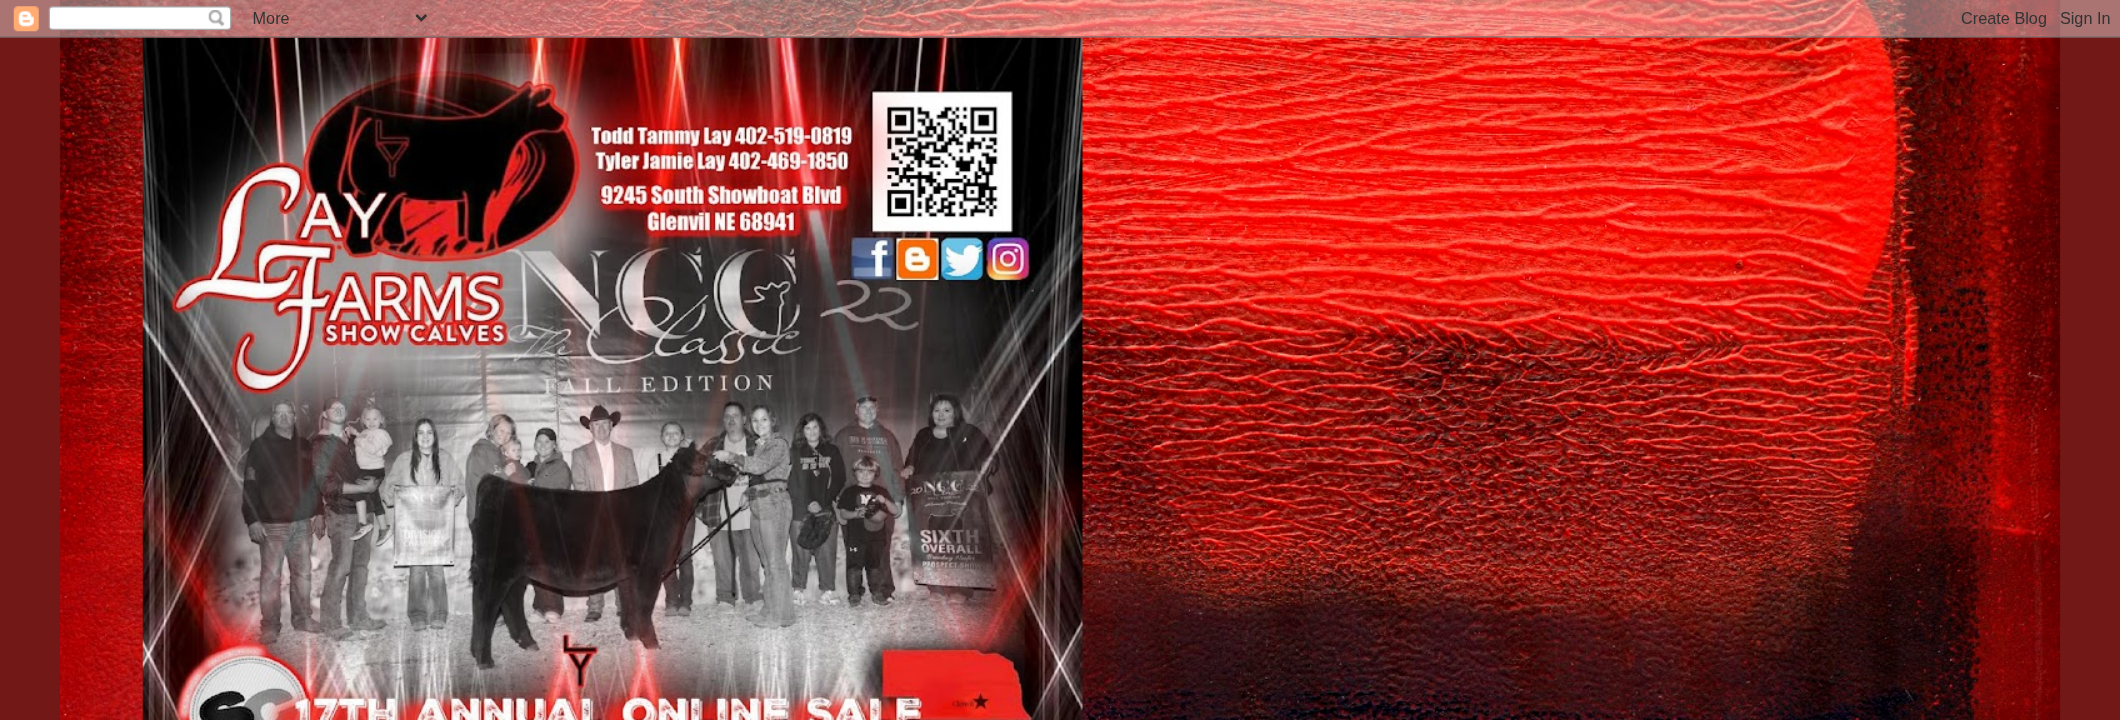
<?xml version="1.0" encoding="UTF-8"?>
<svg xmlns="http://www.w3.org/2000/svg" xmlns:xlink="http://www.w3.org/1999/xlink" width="2120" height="720">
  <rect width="100%" height="100%" fill="#721817" />
  <image x="59" y="0" width="2002" height="720" xlink:href="image1.png" />
  <image x="142" y="37" width="941" height="683" xlink:href="image3.png" />
  <image x="0" y="0" width="2120" height="38" xlink:href="image2.png" />
</svg>
